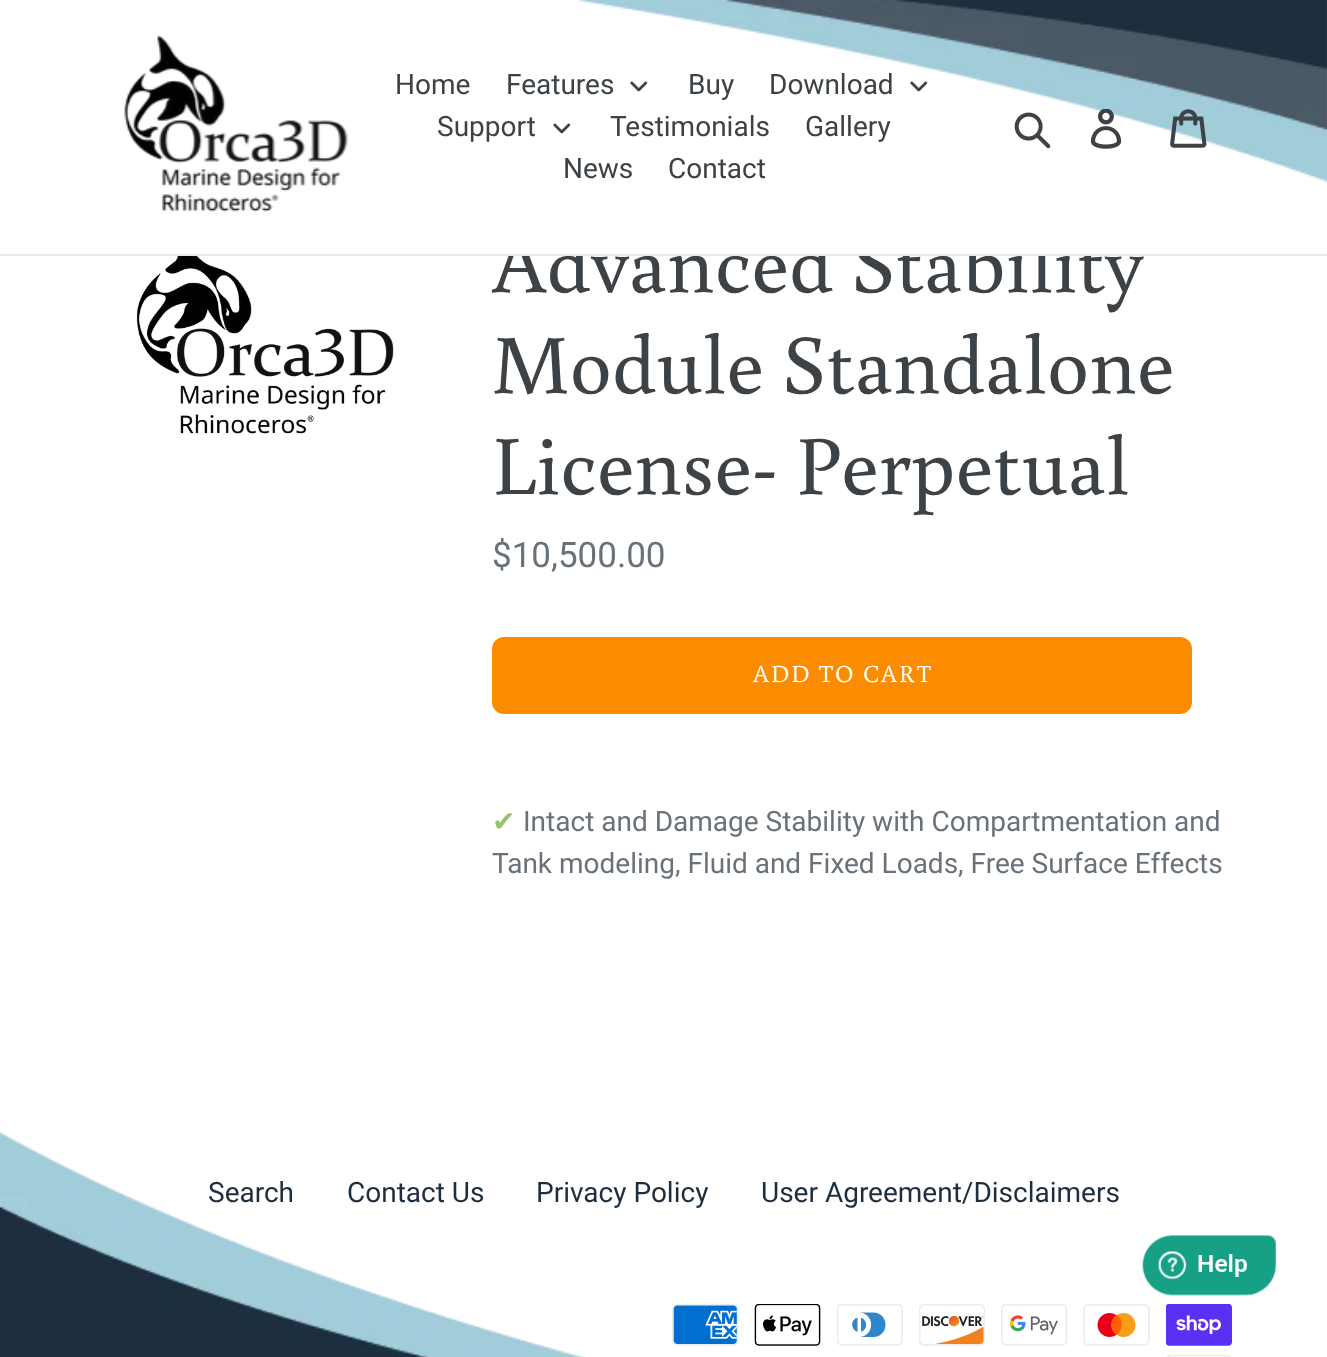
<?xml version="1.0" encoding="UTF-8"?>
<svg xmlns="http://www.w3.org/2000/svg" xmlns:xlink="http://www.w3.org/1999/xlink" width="1327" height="1357">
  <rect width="100%" height="100%" fill="#ffffff" />
  <image x="577" y="0" width="750" height="182" xlink:href="image1.png" />
  <image x="124" y="35" width="225" height="177" xlink:href="image2.png" />
  <image x="630" y="81" width="18" height="11" xlink:href="image3.png" />
  <image x="910" y="81" width="18" height="11" xlink:href="image3.png" />
  <image x="553" y="123" width="18" height="11" xlink:href="image3.png" />
  <image x="1014" y="112" width="37" height="37" xlink:href="image4.png" />
  <image x="1090" y="109" width="32" height="40" xlink:href="image5.png" />
  <image x="1170" y="109" width="37" height="39" xlink:href="image6.png" />
  <image x="136" y="256" width="258" height="178" xlink:href="image7.png" />
  <rect x="492" y="637" width="700" height="77" rx="12" fill="#fb8c00" />
  <image x="0" y="1132" width="585" height="225" xlink:href="image8.png" />
  <image x="672" y="1304" width="67" height="42" xlink:href="image9.png" />
  <image x="754" y="1304" width="67" height="42" xlink:href="image10.png" />
  <image x="837" y="1304" width="66" height="42" xlink:href="image11.png" />
  <image x="919" y="1304" width="66" height="42" xlink:href="image12.png" />
  <image x="1001" y="1304" width="67" height="42" xlink:href="image13.png" />
  <image x="1083" y="1304" width="67" height="42" xlink:href="image14.png" />
  <image x="1166" y="1304" width="66" height="42" xlink:href="image15.png" />
  <image x="1166" y="1355" width="65" height="2" xlink:href="image16.png" />
  <image x="1142" y="1235" width="134" height="61" xlink:href="image17.png" />
  <text x="395" y="94" style="font-family: Roboto; font-size: 28px; fill: #3d4246">Home</text>
  <text x="506" y="94" style="font-family: Roboto; font-size: 28px; fill: #3d4246">Features</text>
  <text x="688" y="94" style="font-family: Roboto; font-size: 28px; fill: #3d4246">Buy</text>
  <text x="769" y="94" style="font-family: Roboto; font-size: 28px; fill: #3d4246">Download</text>
  <text x="437" y="136" style="font-family: Roboto; font-size: 28px; fill: #3d4246">Support</text>
  <text x="610" y="136" style="font-family: Roboto; font-size: 28px; fill: #3d4246">Testimonials</text>
  <text x="805" y="136" style="font-family: Roboto; font-size: 28px; fill: #3d4246">Gallery</text>
  <text x="563" y="178" style="font-family: Roboto; font-size: 28px; fill: #3d4246">News</text>
  <text x="668" y="178" style="font-family: Roboto; font-size: 28px; fill: #3d4246">Contact</text>
  <text x="492" y="292" style="font-family: Buenard; font-size: 84px; fill: #3d4246">Advanced Stability</text>
  <rect y="254" width="1327" height="2" fill="#e8e9eb" />
  <rect x="509" y="231" width="583" height="23" fill="#ffffff" />
  <text x="492" y="393" style="font-family: Buenard; font-size: 84px; fill: #3d4246">Module Standalone</text>
  <text x="492" y="494" style="font-family: Buenard; font-size: 84px; fill: #3d4246">License- Perpetual</text>
  <text x="492" y="567" style="font-family: Roboto; font-size: 35px; fill: #69727b">$10,500.00</text>
  <text x="753" y="682" style="font-family: Buenard; font-size: 24.5px; letter-spacing: 2px; fill: #ffffff">ADD TO CART</text>
  <text x="492" y="831" style="font-family: DejaVu Sans; font-size: 28px; fill: #99c26f">✔︎</text>
  <text x="523" y="831" style="font-family: Roboto; font-size: 28px; fill: #69727b">Intact and Damage Stability with Compartmentation and</text>
  <text x="492" y="873" style="font-family: Roboto; font-size: 28px; fill: #69727b">Tank modeling, Fluid and Fixed Loads, Free Surface Effects</text>
  <text x="208" y="1202" style="font-family: Roboto; font-size: 28px; fill: #1d2e3f">Search</text>
  <text x="347" y="1202" style="font-family: Roboto; font-size: 28px; fill: #1d2e3f">Contact Us</text>
  <text x="536" y="1202" style="font-family: Roboto; font-size: 28px; fill: #1d2e3f">Privacy Policy</text>
  <text x="761" y="1202" style="font-family: Roboto; font-size: 28px; fill: #1d2e3f">User Agreement/Disclaimers</text>
</svg>
